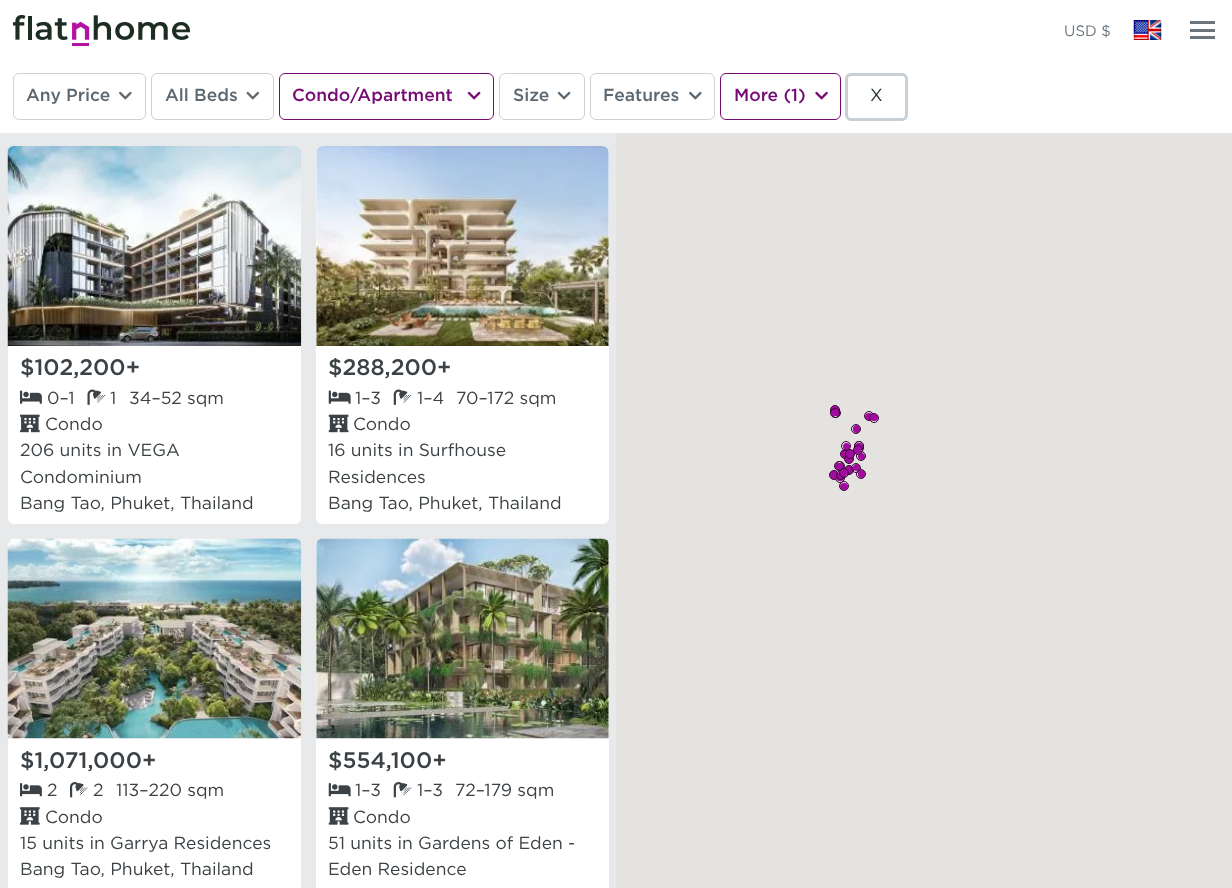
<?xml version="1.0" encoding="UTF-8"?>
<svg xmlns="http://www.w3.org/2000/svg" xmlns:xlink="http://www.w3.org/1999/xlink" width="1232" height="888">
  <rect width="100%" height="100%" fill="#e8e9ea" />
  <rect width="1232" height="133" fill="#ffffff" />
  <image x="13" y="15" width="177" height="31" xlink:href="image1.png" />
  <image x="1133" y="20" width="29" height="20" xlink:href="image2.png" />
  <rect x="1190" y="21" width="25" height="3" fill="#69747c" />
  <rect x="1190" y="29" width="25" height="3" fill="#69747c" />
  <rect x="1190" y="36" width="25" height="3" fill="#69747c" />
  <rect x="13.5" y="73.5" width="132" height="46" rx="5.5" fill="none" stroke="#cdd1d4" />
  <image x="119" y="91" width="13" height="9" xlink:href="image3.png" />
  <rect x="151.5" y="73.5" width="122" height="46" rx="5.5" fill="none" stroke="#cdd1d4" />
  <image x="246" y="91" width="14" height="9" xlink:href="image4.png" />
  <rect x="279.5" y="73.5" width="214" height="46" rx="5.5" fill="none" stroke="#760b73" />
  <image x="467" y="91" width="14" height="9" xlink:href="image5.png" />
  <rect x="499.5" y="73.5" width="85" height="46" rx="5.5" fill="none" stroke="#cdd1d4" />
  <image x="557" y="91" width="14" height="9" xlink:href="image6.png" />
  <rect x="590.5" y="73.5" width="124" height="46" rx="5.5" fill="none" stroke="#cdd1d4" />
  <image x="689" y="91" width="13" height="9" xlink:href="image3.png" />
  <rect x="720.5" y="73.5" width="120" height="46" rx="5.5" fill="none" stroke="#760b73" />
  <image x="815" y="91" width="13" height="9" xlink:href="image7.png" />
  <rect x="846.5" y="74.5" width="60" height="45" rx="4.5" fill="none" stroke="#c6d0d6" stroke-width="3" />
  <rect x="8" y="146" width="293" height="378" rx="6" fill="#ffffff" />
  <image x="7" y="146" width="295" height="200" xlink:href="image8.png" />
  <image x="20" y="390" width="22" height="14" xlink:href="image9.png" />
  <image x="87" y="389" width="18" height="16" xlink:href="image10.png" />
  <image x="20" y="414" width="20" height="19" xlink:href="image11.png" />
  <rect x="316" y="146" width="293" height="378" rx="6" fill="#ffffff" />
  <image x="316" y="146" width="293" height="200" xlink:href="image12.png" />
  <image x="328" y="390" width="23" height="14" xlink:href="image13.png" />
  <image x="393" y="389" width="19" height="16" xlink:href="image14.png" />
  <image x="328" y="414" width="21" height="19" xlink:href="image15.png" />
  <rect x="8" y="539" width="293" height="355" rx="6" fill="#ffffff" />
  <image x="7" y="538" width="295" height="201" xlink:href="image16.png" />
  <image x="20" y="783" width="22" height="14" xlink:href="image17.png" />
  <image x="70" y="782" width="18" height="16" xlink:href="image18.png" />
  <image x="20" y="807" width="20" height="18" xlink:href="image19.png" />
  <rect x="316" y="539" width="293" height="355" rx="6" fill="#ffffff" />
  <image x="316" y="538" width="293" height="201" xlink:href="image20.png" />
  <image x="328" y="783" width="23" height="14" xlink:href="image21.png" />
  <image x="393" y="782" width="19" height="16" xlink:href="image22.png" />
  <image x="328" y="807" width="21" height="18" xlink:href="image23.png" />
  <rect x="616" y="133" width="616" height="755" fill="#e5e3df" />
  <circle cx="836.5" cy="412.5" r="3.5" fill="#a30ba0" />
  <circle cx="836" cy="413" r="4.5" fill="none" stroke="#390737" />
  <circle cx="835" cy="410" r="4.5" fill="#a30ba0" stroke="#390737" />
  <rect x="831" y="409" width="8" height="7" rx="3.5" fill="#a30ba0" />
  <circle cx="835" cy="413" r="4.5" fill="none" stroke="#390737" />
  <rect x="865" y="413" width="8" height="7" rx="3.5" fill="#a30ba0" />
  <circle cx="869" cy="416" r="4.5" fill="none" stroke="#390737" />
  <rect x="870" y="414" width="8" height="7" rx="3.5" fill="#a30ba0" />
  <circle cx="874" cy="418" r="4.5" fill="none" stroke="#390737" />
  <rect x="853" y="425" width="7" height="8" rx="3.5" fill="#a30ba0" />
  <circle cx="856" cy="429" r="4.5" fill="none" stroke="#390737" />
  <circle cx="845" cy="454" r="4.5" fill="#a30ba0" stroke="#390737" />
  <rect x="836" y="463" width="8" height="7" rx="3.5" fill="#a30ba0" />
  <circle cx="840" cy="466" r="4.5" fill="none" stroke="#390737" />
  <circle cx="849" cy="459" r="4.5" fill="#a30ba0" stroke="#390737" />
  <circle cx="850" cy="454" r="4.5" fill="#a30ba0" stroke="#390737" />
  <circle cx="846.5" cy="446.5" r="3.5" fill="#a30ba0" />
  <circle cx="846" cy="446" r="4.5" fill="none" stroke="#390737" />
  <circle cx="859" cy="448" r="4.5" fill="none" stroke="#390737" />
  <circle cx="859" cy="446" r="4.5" fill="none" stroke="#390737" />
  <rect x="855" y="443" width="8" height="7" rx="3.5" fill="#a30ba0" />
  <circle cx="859" cy="446" r="4.5" fill="none" stroke="#390737" />
  <circle cx="861.5" cy="456.5" r="3.5" fill="#a30ba0" />
  <circle cx="861" cy="456" r="4.5" fill="none" stroke="#390737" />
  <rect x="854" y="446" width="7" height="8" rx="3.5" fill="#a30ba0" />
  <circle cx="858" cy="450" r="4.5" fill="none" stroke="#390737" />
  <rect x="835" y="463" width="8" height="7" rx="3.5" fill="#a30ba0" />
  <circle cx="839" cy="466" r="4.5" fill="none" stroke="#390737" />
  <circle cx="849" cy="470" r="4.5" fill="#a30ba0" stroke="#390737" />
  <circle cx="856.5" cy="467.5" r="3.5" fill="#a30ba0" />
  <circle cx="856" cy="468" r="4.5" fill="none" stroke="#390737" />
  <rect x="836" y="474" width="8" height="7" rx="3.5" fill="#a30ba0" />
  <rect x="840" y="483" width="8" height="7" rx="3.5" fill="#a30ba0" />
  <circle cx="844" cy="486" r="4.5" fill="none" stroke="#390737" />
  <circle cx="840" cy="478" r="4.5" fill="none" stroke="#390737" />
  <circle cx="834" cy="475" r="4.5" fill="#a30ba0" stroke="#390737" />
  <rect x="838" y="471" width="7" height="8" rx="3.5" fill="#a30ba0" />
  <circle cx="841" cy="475" r="4.5" fill="none" stroke="#390737" />
  <rect x="840" y="469" width="8" height="7" rx="3.5" fill="#a30ba0" />
  <circle cx="844" cy="473" r="4.5" fill="none" stroke="#390737" />
  <rect x="858" y="470" width="7" height="8" rx="3.5" fill="#a30ba0" />
  <circle cx="861" cy="474" r="4.5" fill="none" stroke="#390737" />
  <text x="1064" y="36" style="font-family: Gotham; font-size: 15px; fill: #69747c">USD $</text>
  <text x="26" y="101" style="font-family: Gotham; font-size: 17.5px; font-weight: 500; fill: #5c6872">Any Price</text>
  <text x="165" y="101" style="font-family: Gotham; font-size: 17.5px; font-weight: 500; fill: #5c6872">All Beds</text>
  <text x="292" y="101" style="font-family: Gotham; font-size: 17.5px; font-weight: 500; fill: #760b73">Condo/Apartment</text>
  <text x="513" y="101" style="font-family: Gotham; font-size: 17.5px; font-weight: 500; fill: #5c6872">Size</text>
  <text x="603" y="101" style="font-family: Gotham; font-size: 17.5px; font-weight: 500; fill: #5c6872">Features</text>
  <text x="734" y="101" style="font-family: Gotham; font-size: 17.5px; font-weight: 500; fill: #760b73">More (1)</text>
  <text x="870" y="101" style="font-family: Gotham; font-size: 17.5px; fill: #1e2d24">X</text>
  <text x="20" y="375" style="font-family: Gotham; font-size: 22.5px; font-weight: 500; fill: #3b4144">$102,200+</text>
  <text x="47" y="404" style="font-family: Gotham; font-size: 17.5px; fill: #3b4144">0–1</text>
  <text x="110" y="404" style="font-family: Gotham; font-size: 17.5px; fill: #3b4144">1</text>
  <text x="129" y="404" style="font-family: Gotham; font-size: 17.5px; fill: #3b4144">34–52 sqm</text>
  <text x="45" y="430" style="font-family: Gotham; font-size: 17.5px; fill: #3b4144">Condo</text>
  <text x="20" y="456" style="font-family: Gotham; font-size: 17.5px; fill: #3b4144">206 units in VEGA</text>
  <text x="20" y="483" style="font-family: Gotham; font-size: 17.5px; fill: #3b4144">Condominium</text>
  <text x="20" y="509" style="font-family: Gotham; font-size: 17.5px; fill: #3b4144">Bang Tao, Phuket, Thailand</text>
  <text x="328" y="375" style="font-family: Gotham; font-size: 22.5px; font-weight: 500; fill: #3b4144">$288,200+</text>
  <text x="355" y="404" style="font-family: Gotham; font-size: 17.5px; fill: #3b4144">1–3</text>
  <text x="417" y="404" style="font-family: Gotham; font-size: 17.5px; fill: #3b4144">1–4</text>
  <text x="456" y="404" style="font-family: Gotham; font-size: 17.5px; fill: #3b4144">70–172 sqm</text>
  <text x="353" y="430" style="font-family: Gotham; font-size: 17.5px; fill: #3b4144">Condo</text>
  <text x="328" y="456" style="font-family: Gotham; font-size: 17.5px; fill: #3b4144">16 units in Surfhouse</text>
  <text x="328" y="483" style="font-family: Gotham; font-size: 17.5px; fill: #3b4144">Residences</text>
  <text x="328" y="509" style="font-family: Gotham; font-size: 17.5px; fill: #3b4144">Bang Tao, Phuket, Thailand</text>
  <text x="20" y="768" style="font-family: Gotham; font-size: 22.5px; font-weight: 500; fill: #3b4144">$1,071,000+</text>
  <text x="47" y="796" style="font-family: Gotham; font-size: 17.5px; fill: #3b4144">2</text>
  <text x="93" y="796" style="font-family: Gotham; font-size: 17.5px; fill: #3b4144">2</text>
  <text x="116" y="796" style="font-family: Gotham; font-size: 17.5px; fill: #3b4144">113–220 sqm</text>
  <text x="45" y="823" style="font-family: Gotham; font-size: 17.5px; fill: #3b4144">Condo</text>
  <text x="20" y="849" style="font-family: Gotham; font-size: 17.5px; fill: #3b4144">15 units in Garrya Residences</text>
  <text x="20" y="875" style="font-family: Gotham; font-size: 17.5px; fill: #3b4144">Bang Tao, Phuket, Thailand</text>
  <text x="328" y="768" style="font-family: Gotham; font-size: 22.5px; font-weight: 500; fill: #3b4144">$554,100+</text>
  <text x="355" y="796" style="font-family: Gotham; font-size: 17.5px; fill: #3b4144">1–3</text>
  <text x="417" y="796" style="font-family: Gotham; font-size: 17.5px; fill: #3b4144">1–3</text>
  <text x="455" y="796" style="font-family: Gotham; font-size: 17.5px; fill: #3b4144">72–179 sqm</text>
  <text x="353" y="823" style="font-family: Gotham; font-size: 17.5px; fill: #3b4144">Condo</text>
  <text x="328" y="849" style="font-family: Gotham; font-size: 17.5px; fill: #3b4144">51 units in Gardens of Eden -</text>
  <text x="328" y="875" style="font-family: Gotham; font-size: 17.5px; fill: #3b4144">Eden Residence</text>
</svg>
